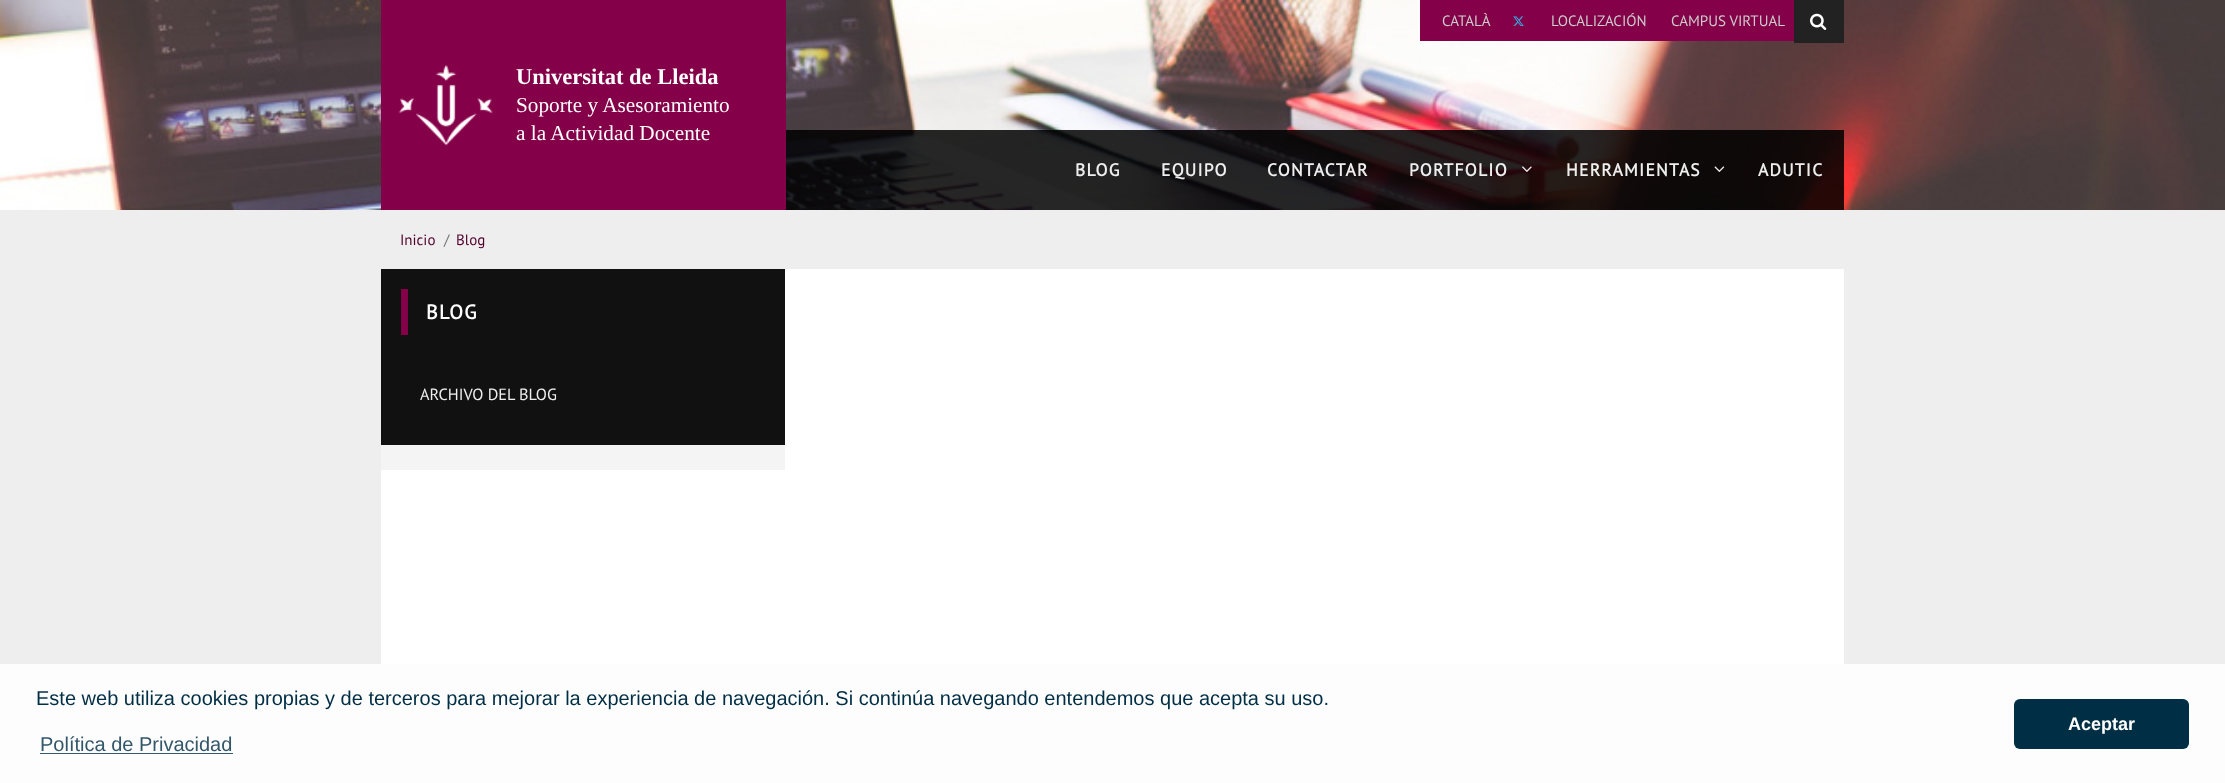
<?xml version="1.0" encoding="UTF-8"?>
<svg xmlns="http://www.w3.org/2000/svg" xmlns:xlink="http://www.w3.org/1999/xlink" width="2225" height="783">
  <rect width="100%" height="100%" fill="#eeeeee" />
  <rect y="664" width="2225" height="119" fill="#fdfdfd" />
  <image x="0" y="0" width="2225" height="210" xlink:href="image1.png" />
  <rect x="1420" width="374" height="41" fill="#840048" />
  <image x="1513" y="16" width="11" height="10" xlink:href="image2.png" />
  <rect x="1794" width="50" height="43" fill="#222222" />
  <image x="1810" y="13" width="17" height="17" xlink:href="image3.png" />
  <rect x="381" width="405" height="210" fill="#840048" />
  <image x="398" y="65" width="95" height="81" xlink:href="image4.png" />
  <rect x="786" y="130" width="1058" height="80" fill="#000000" fill-opacity="0.85" />
  <image x="1522" y="166" width="10" height="6" xlink:href="image5.png" />
  <image x="1714" y="166" width="11" height="6" xlink:href="image6.png" />
  <rect x="381" y="269" width="1463" height="395" fill="#ffffff" />
  <rect x="381" y="445" width="404" height="25" fill="#f4f4f4" />
  <rect x="381" y="269" width="404" height="176" fill="#111111" />
  <rect x="401" y="289" width="7" height="46" fill="#840048" />
  <rect x="40" y="753" width="193" height="1" fill="#33576a" />
  <rect x="2014" y="699" width="175" height="50" rx="6" fill="#002e45" />
  <text x="1442" y="26" style="font-family: PT Sans; font-size: 15px; fill: #cccccc">CATALÀ</text>
  <text x="1551" y="26" style="font-family: PT Sans; font-size: 15px; fill: #cccccc">LOCALIZACIÓN</text>
  <text x="1671" y="26" style="font-family: PT Sans; font-size: 15px; fill: #cccccc">CAMPUS VIRTUAL</text>
  <text x="516" y="84" style="font-family: Liberation Serif; font-size: 22.5px; font-weight: bold; fill: #ffffff">Universitat de Lleida</text>
  <text x="516" y="112" style="font-family: Liberation Serif; font-size: 21.25px; fill: #ffffff">Soporte y Asesoramiento</text>
  <text x="516" y="140" style="font-family: Liberation Serif; font-size: 21.25px; fill: #ffffff">a la Actividad Docente</text>
  <text x="1075" y="176" style="font-family: PT Sans; font-size: 17.5px; font-weight: bold; letter-spacing: 1.25px; fill: #eeeeee">BLOG</text>
  <text x="1161" y="176" style="font-family: PT Sans; font-size: 17.5px; font-weight: bold; letter-spacing: 1.25px; fill: #eeeeee">EQUIPO</text>
  <text x="1267" y="176" style="font-family: PT Sans; font-size: 17.5px; font-weight: bold; letter-spacing: 1.25px; fill: #eeeeee">CONTACTAR</text>
  <text x="1409" y="176" style="font-family: PT Sans; font-size: 17.5px; font-weight: bold; letter-spacing: 1.25px; fill: #eeeeee">PORTFOLIO</text>
  <text x="1566" y="176" style="font-family: PT Sans; font-size: 17.5px; font-weight: bold; letter-spacing: 1.25px; fill: #eeeeee">HERRAMIENTAS</text>
  <text x="1758" y="176" style="font-family: PT Sans; font-size: 17.5px; font-weight: bold; letter-spacing: 1.25px; fill: #eeeeee">ADUTIC</text>
  <text x="400" y="245" style="font-family: PT Sans; font-size: 15px; fill: #51002c">Inicio</text>
  <text x="444" y="245" style="font-family: PT Sans; font-size: 15px; fill: #737373">/</text>
  <text x="456" y="245" style="font-family: PT Sans; font-size: 15px; fill: #51002c">Blog</text>
  <text x="426" y="319" style="font-family: PT Sans; font-size: 20px; font-weight: bold; letter-spacing: 1.25px; fill: #ffffff">BLOG</text>
  <text x="420" y="400" style="font-family: PT Sans; font-size: 16.25px; fill: #eeeeee">ARCHIVO DEL BLOG</text>
  <text x="36" y="705" style="font-family: Liberation Sans; font-size: 20px; fill: #002e45">Este web utiliza cookies propias y de terceros para mejorar la experiencia de navegación. Si continúa navegando entendemos que acepta su uso.</text>
  <text x="40" y="751" style="font-family: Liberation Sans; font-size: 20px; fill: #33576a">Política de Privacidad</text>
  <text x="2068" y="730" style="font-family: Liberation Sans; font-size: 18px; font-weight: bold; fill: #ffffff">Aceptar</text>
</svg>
